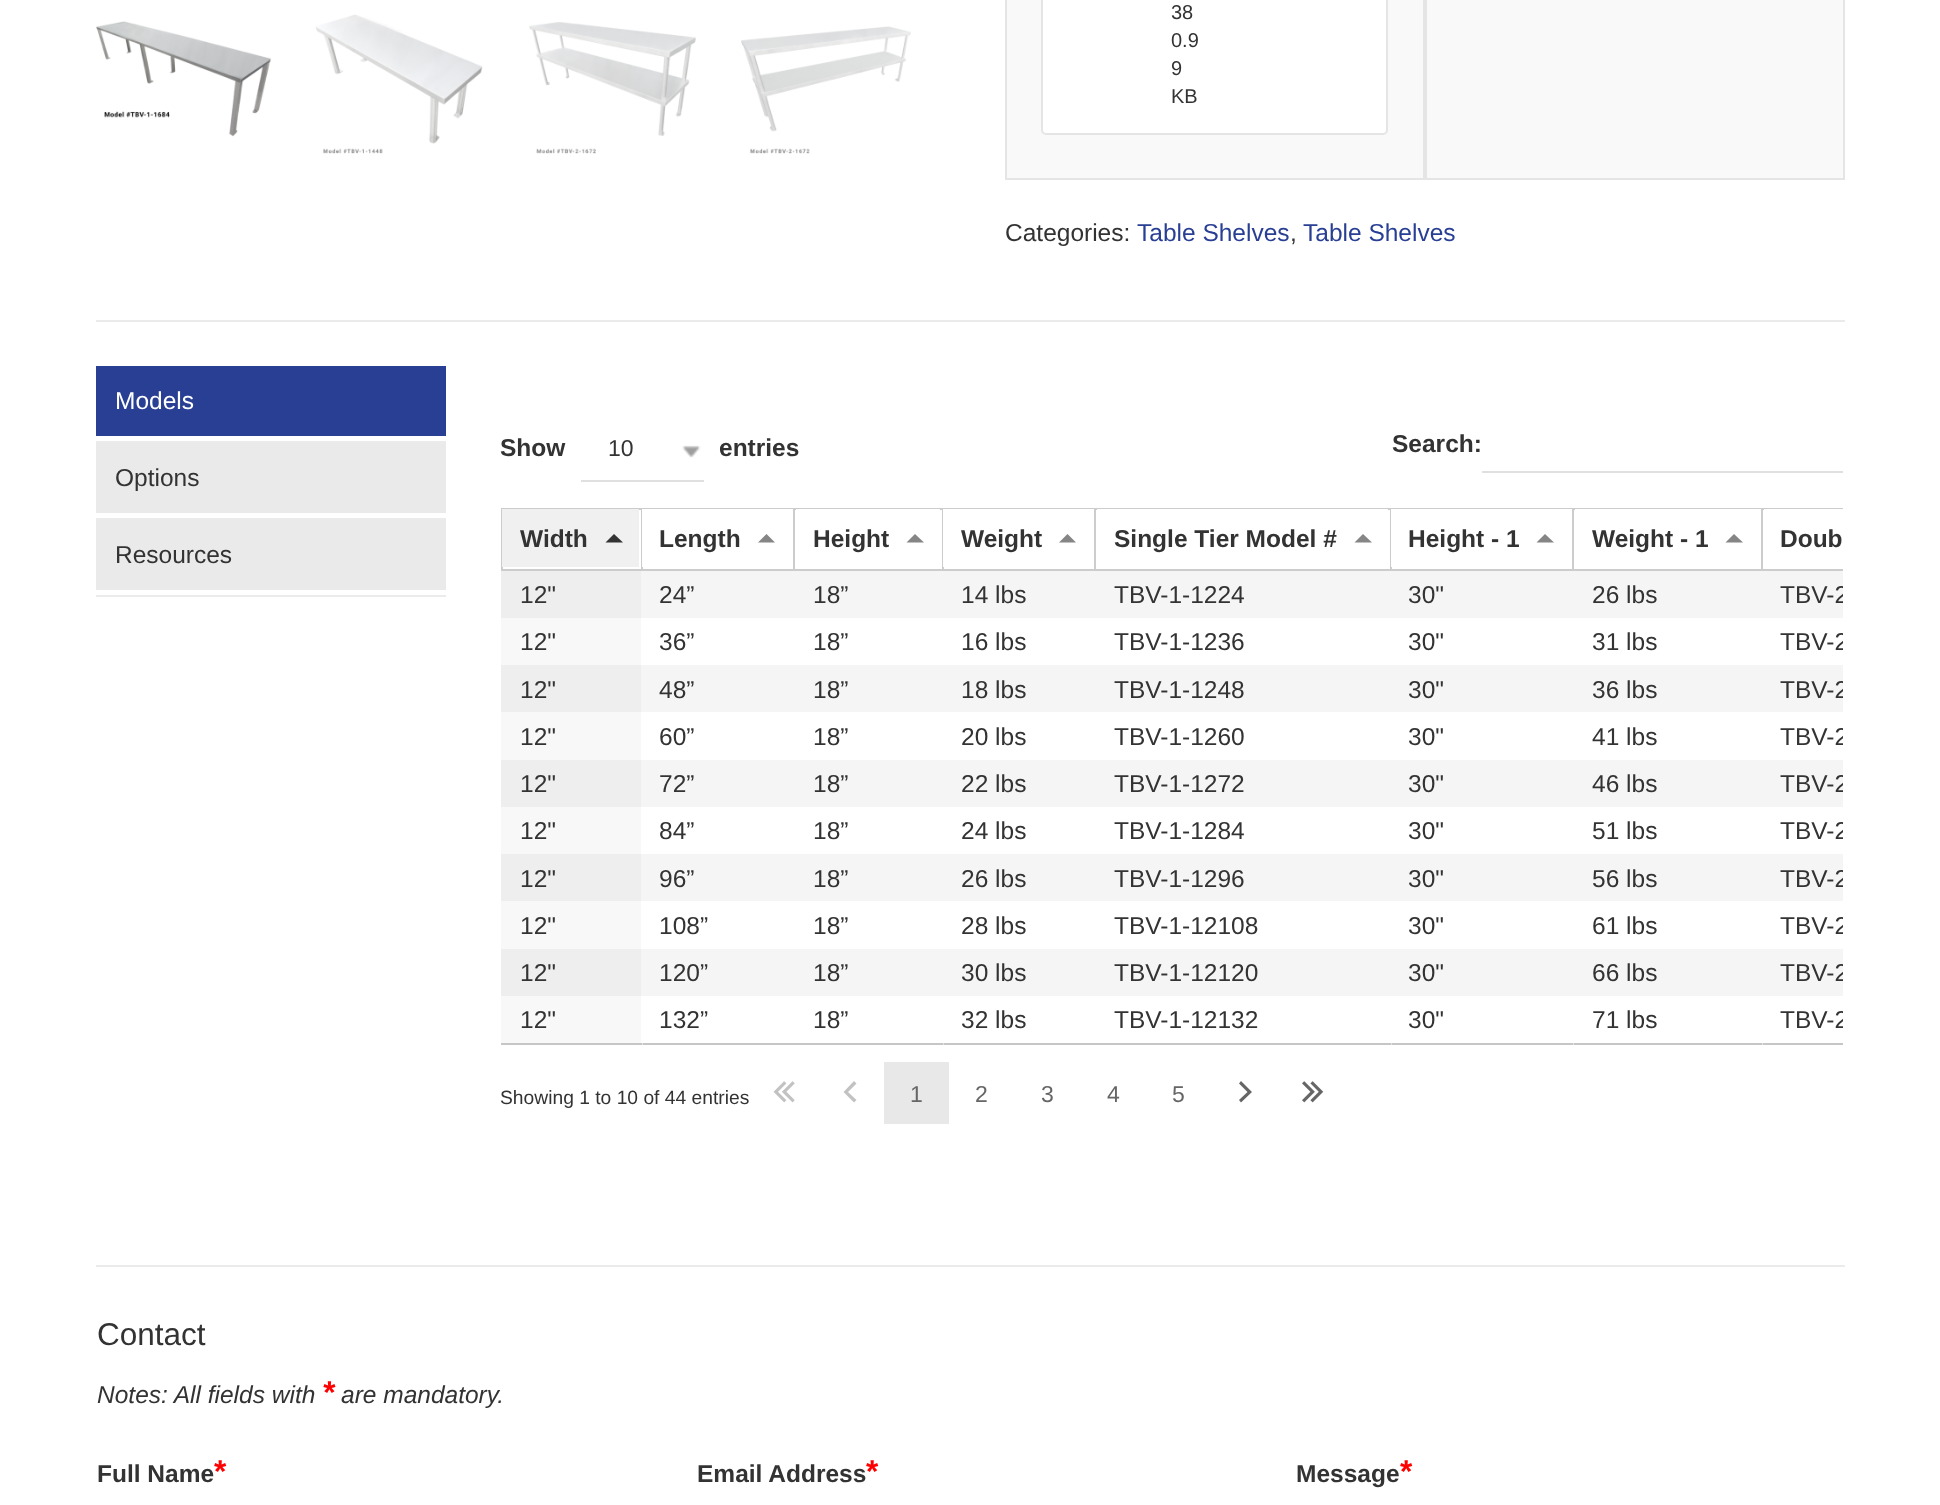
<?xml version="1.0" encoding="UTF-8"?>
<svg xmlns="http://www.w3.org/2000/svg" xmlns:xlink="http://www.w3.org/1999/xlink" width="1940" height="1505">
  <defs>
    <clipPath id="clip1"><rect x="1764" y="572" width="79" height="44" /></clipPath>
    <clipPath id="clip2"><rect x="1764" y="620" width="79" height="43" /></clipPath>
    <clipPath id="clip3"><rect x="1764" y="667" width="79" height="44" /></clipPath>
    <clipPath id="clip4"><rect x="1764" y="714" width="79" height="44" /></clipPath>
    <clipPath id="clip5"><rect x="1764" y="761" width="79" height="44" /></clipPath>
    <clipPath id="clip6"><rect x="1764" y="809" width="79" height="43" /></clipPath>
    <clipPath id="clip7"><rect x="1764" y="856" width="79" height="44" /></clipPath>
    <clipPath id="clip8"><rect x="1764" y="903" width="79" height="44" /></clipPath>
    <clipPath id="clip9"><rect x="1764" y="950" width="79" height="44" /></clipPath>
    <clipPath id="clip10"><rect x="1764" y="998" width="79" height="43" /></clipPath>
  </defs>
  <rect width="100%" height="100%" fill="#ffffff" />
  <image x="96" y="21" width="176" height="116" xlink:href="image1.png" />
  <image x="315" y="14" width="168" height="140" xlink:href="image2.png" />
  <image x="529" y="22" width="167" height="132" xlink:href="image3.png" />
  <image x="741" y="26" width="170" height="128" xlink:href="image4.png" />
  <rect x="1006" y="-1" width="418" height="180" fill="#f9f9f9" stroke="#e5e5e5" stroke-width="2" />
  <rect x="1042" y="-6" width="345" height="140" rx="4" fill="#ffffff" stroke="#e5e5e5" stroke-width="2" />
  <rect x="1426" y="-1" width="418" height="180" fill="#f9f9f9" stroke="#e5e5e5" stroke-width="2" />
  <rect x="96" y="320" width="1749" height="2" fill="#ebebeb" />
  <rect x="96" y="1265" width="1749" height="2" fill="#ebebeb" />
  <rect x="96" y="441" width="350" height="2" fill="#ebebeb" />
  <rect x="96" y="366" width="350" height="70" fill="#293f94" />
  <rect x="96" y="518" width="350" height="2" fill="#ebebeb" />
  <rect x="96" y="443" width="350" height="70" fill="#eaeaea" />
  <rect x="96" y="595" width="350" height="2" fill="#ebebeb" />
  <rect x="96" y="520" width="350" height="70" fill="#eaeaea" />
  <rect x="581" y="480" width="123" height="2" fill="#e0e0e0" />
  <image x="682" y="445" width="19" height="13" xlink:href="image5.png" />
  <rect x="1482" y="471" width="361" height="2" fill="#e0e0e0" />
  <rect x="1761" y="508" width="82" height="2" fill="#cccccc" />
  <rect x="1761" y="508" width="2" height="63" fill="#cccccc" />
  <rect x="1572" y="508" width="190" height="2" fill="#cccccc" />
  <rect x="1572" y="508" width="2" height="63" fill="#cccccc" />
  <rect x="1390" y="508" width="183" height="2" fill="#cccccc" />
  <rect x="1390" y="508" width="2" height="63" fill="#cccccc" />
  <rect x="1094" y="508" width="297" height="2" fill="#cccccc" />
  <rect x="1094" y="508" width="2" height="63" fill="#cccccc" />
  <rect x="942" y="508" width="154" height="2" fill="#cccccc" />
  <rect x="942" y="508" width="2" height="63" fill="#cccccc" />
  <rect x="793" y="508" width="150" height="2" fill="#cccccc" />
  <rect x="793" y="508" width="2" height="63" fill="#cccccc" />
  <rect x="641" y="508" width="154" height="2" fill="#cccccc" />
  <rect x="641" y="508" width="2" height="63" fill="#cccccc" />
  <rect x="501" y="508" width="141" height="2" fill="#cccccc" />
  <rect x="501" y="508" width="2" height="63" fill="#cccccc" />
  <rect x="502" y="509" width="137" height="58" fill="#f0f0f0" />
  <path d="M 623 542.5 h -17.5 l 8.5 -8.5 z" fill="#333333" />
  <rect x="642" y="509" width="151" height="58" fill="#ffffff" />
  <path d="M 775 542.5 h -17 l 8.5 -8.5 z" fill="#858585" />
  <rect x="796" y="509" width="144" height="1" fill="#ffffff" />
  <path d="M 924 542.5 h -17.5 l 8.5 -8.5 z" fill="#858585" />
  <rect x="943" y="509" width="151" height="58" fill="#ffffff" />
  <path d="M 1076 542.5 h -17 l 8.5 -8.5 z" fill="#858585" />
  <rect x="1097" y="509" width="291" height="1" fill="#ffffff" />
  <path d="M 1372 542.5 h -17.5 l 8.5 -8.5 z" fill="#858585" />
  <rect x="1391" y="509" width="181" height="58" fill="#ffffff" />
  <path d="M 1554 542.5 h -17.5 l 8.5 -8.5 z" fill="#858585" />
  <rect x="1575" y="509" width="186" height="1" fill="#ffffff" />
  <path d="M 1743 542.5 h -17.5 l 8.5 -8.5 z" fill="#858585" />
  <rect x="501" y="569" width="1342" height="2" fill="#cccccc" />
  <rect x="1764" y="509" width="79" height="1" fill="#ffffff" />
  <rect x="501" y="571" width="140" height="47" fill="#eeeeee" />
  <rect x="641" y="571" width="1202" height="47" fill="#f5f5f5" />
  <rect x="501" y="618" width="140" height="47" fill="#f8f8f8" />
  <rect x="501" y="665" width="140" height="47" fill="#eeeeee" />
  <rect x="641" y="665" width="1202" height="47" fill="#f5f5f5" />
  <rect x="501" y="712" width="140" height="48" fill="#f8f8f8" />
  <rect x="501" y="760" width="140" height="47" fill="#eeeeee" />
  <rect x="641" y="760" width="1202" height="47" fill="#f5f5f5" />
  <rect x="501" y="807" width="140" height="47" fill="#f8f8f8" />
  <rect x="501" y="854" width="140" height="47" fill="#eeeeee" />
  <rect x="641" y="854" width="1202" height="47" fill="#f5f5f5" />
  <rect x="501" y="901" width="140" height="48" fill="#f8f8f8" />
  <rect x="501" y="949" width="140" height="47" fill="#eeeeee" />
  <rect x="641" y="949" width="1202" height="47" fill="#f5f5f5" />
  <rect x="501" y="996" width="140" height="47" fill="#f8f8f8" />
  <rect x="501" y="1043" width="1342" height="2" fill="#c6c6c6" />
  <rect x="642" y="1043" width="1" height="2" fill="#e0e0e0" />
  <rect x="943" y="1043" width="1" height="2" fill="#e0e0e0" />
  <rect x="1391" y="1043" width="1" height="2" fill="#e0e0e0" />
  <rect x="1573" y="1043" width="1" height="2" fill="#e0e0e0" />
  <rect x="1762" y="1043" width="1" height="2" fill="#e0e0e0" />
  <image x="773" y="1081" width="22" height="22" xlink:href="image6.png" />
  <path d="M 843.5 1092 l 10.5 -11 l 2.5 2.5 l -8.5 8.5 l 8.5 8 l -2.5 2.5 z" fill="#c2c2c2" />
  <rect x="884" y="1062" width="65" height="62" fill="#e8e8e8" />
  <path d="M 1239 1100 l 8.5 -8 l -8.5 -8.5 l 2 -2.5 l 11 11 l -11 10.5 z" fill="#666666" />
  <image x="1302" y="1081" width="22" height="22" xlink:href="image7.png" />
  <text x="1171" y="19" style="font-family: Liberation Sans; font-size: 20px; fill: #333333">38</text>
  <text x="1171" y="47" style="font-family: Liberation Sans; font-size: 20px; fill: #333333">0.9</text>
  <text x="1171" y="75" style="font-family: Liberation Sans; font-size: 20px; fill: #333333">9</text>
  <text x="1171" y="103" style="font-family: Liberation Sans; font-size: 20px; fill: #333333">KB</text>
  <text x="1005" y="241" style="font-family: Liberation Sans; font-size: 24.5px; fill: #333333">Categories:</text>
  <text x="1137" y="241" style="font-family: Liberation Sans; font-size: 24.5px; fill: #293f94">Table Shelves</text>
  <text x="1290" y="241" style="font-family: Liberation Sans; font-size: 24.5px; fill: #333333">,</text>
  <text x="1303" y="241" style="font-family: Liberation Sans; font-size: 24.5px; fill: #293f94">Table Shelves</text>
  <text x="115" y="409" style="font-family: Liberation Sans; font-size: 24.5px; fill: #ffffff">Models</text>
  <text x="115" y="486" style="font-family: Liberation Sans; font-size: 24.5px; fill: #333333">Options</text>
  <text x="115" y="563" style="font-family: Liberation Sans; font-size: 24.5px; fill: #333333">Resources</text>
  <text x="500" y="456" style="font-family: Liberation Sans; font-size: 24.5px; font-weight: bold; fill: #333333">Show</text>
  <text x="608" y="456" style="font-family: Liberation Sans; font-size: 23px; fill: #333333">10</text>
  <text x="719" y="456" style="font-family: Liberation Sans; font-size: 24.5px; font-weight: bold; fill: #333333">entries</text>
  <text x="1392" y="452" style="font-family: Liberation Sans; font-size: 24.5px; font-weight: bold; fill: #333333">Search:</text>
  <text x="520" y="547" style="font-family: Liberation Sans; font-size: 24.5px; font-weight: bold; fill: #333333">Width</text>
  <text x="659" y="547" style="font-family: Liberation Sans; font-size: 24.5px; font-weight: bold; fill: #333333">Length</text>
  <text x="813" y="547" style="font-family: Liberation Sans; font-size: 24.5px; font-weight: bold; fill: #333333">Height</text>
  <text x="961" y="547" style="font-family: Liberation Sans; font-size: 24.5px; font-weight: bold; fill: #333333">Weight</text>
  <text x="1114" y="547" style="font-family: Liberation Sans; font-size: 24.5px; font-weight: bold; fill: #333333">Single Tier Model #</text>
  <text x="1408" y="547" style="font-family: Liberation Sans; font-size: 24.5px; font-weight: bold; fill: #333333">Height - 1</text>
  <text x="1592" y="547" style="font-family: Liberation Sans; font-size: 24.5px; font-weight: bold; fill: #333333">Weight - 1</text>
  <text x="1780" y="547" style="font-family: Liberation Sans; font-size: 24.5px; font-weight: bold; fill: #333333">Doub</text>
  <text x="520" y="603" style="font-family: Liberation Sans; font-size: 24.5px; fill: #333333">12"</text>
  <text x="659" y="603" style="font-family: Liberation Sans; font-size: 24.5px; fill: #333333">24”</text>
  <text x="813" y="603" style="font-family: Liberation Sans; font-size: 24.5px; fill: #333333">18”</text>
  <text x="961" y="603" style="font-family: Liberation Sans; font-size: 24.5px; fill: #333333">14 lbs</text>
  <text x="1114" y="603" style="font-family: Liberation Sans; font-size: 24.5px; fill: #333333">TBV-1-1224</text>
  <text x="1408" y="603" style="font-family: Liberation Sans; font-size: 24.5px; fill: #333333">30"</text>
  <text x="1592" y="603" style="font-family: Liberation Sans; font-size: 24.5px; fill: #333333">26 lbs</text>
  <g clip-path="url(#clip1)">
    <text x="1780" y="603" style="font-family: Liberation Sans; font-size: 24.5px; fill: #333333">TBV-2</text>
  </g>
  <text x="520" y="650" style="font-family: Liberation Sans; font-size: 24.5px; fill: #333333">12"</text>
  <text x="659" y="650" style="font-family: Liberation Sans; font-size: 24.5px; fill: #333333">36”</text>
  <text x="813" y="650" style="font-family: Liberation Sans; font-size: 24.5px; fill: #333333">18”</text>
  <text x="961" y="650" style="font-family: Liberation Sans; font-size: 24.5px; fill: #333333">16 lbs</text>
  <text x="1114" y="650" style="font-family: Liberation Sans; font-size: 24.5px; fill: #333333">TBV-1-1236</text>
  <text x="1408" y="650" style="font-family: Liberation Sans; font-size: 24.5px; fill: #333333">30"</text>
  <text x="1592" y="650" style="font-family: Liberation Sans; font-size: 24.5px; fill: #333333">31 lbs</text>
  <g clip-path="url(#clip2)">
    <text x="1780" y="650" style="font-family: Liberation Sans; font-size: 24.5px; fill: #333333">TBV-2</text>
  </g>
  <text x="520" y="698" style="font-family: Liberation Sans; font-size: 24.5px; fill: #333333">12"</text>
  <text x="659" y="698" style="font-family: Liberation Sans; font-size: 24.5px; fill: #333333">48”</text>
  <text x="813" y="698" style="font-family: Liberation Sans; font-size: 24.5px; fill: #333333">18”</text>
  <text x="961" y="698" style="font-family: Liberation Sans; font-size: 24.5px; fill: #333333">18 lbs</text>
  <text x="1114" y="698" style="font-family: Liberation Sans; font-size: 24.5px; fill: #333333">TBV-1-1248</text>
  <text x="1408" y="698" style="font-family: Liberation Sans; font-size: 24.5px; fill: #333333">30"</text>
  <text x="1592" y="698" style="font-family: Liberation Sans; font-size: 24.5px; fill: #333333">36 lbs</text>
  <g clip-path="url(#clip3)">
    <text x="1780" y="698" style="font-family: Liberation Sans; font-size: 24.5px; fill: #333333">TBV-2</text>
  </g>
  <text x="520" y="745" style="font-family: Liberation Sans; font-size: 24.5px; fill: #333333">12"</text>
  <text x="659" y="745" style="font-family: Liberation Sans; font-size: 24.5px; fill: #333333">60”</text>
  <text x="813" y="745" style="font-family: Liberation Sans; font-size: 24.5px; fill: #333333">18”</text>
  <text x="961" y="745" style="font-family: Liberation Sans; font-size: 24.5px; fill: #333333">20 lbs</text>
  <text x="1114" y="745" style="font-family: Liberation Sans; font-size: 24.5px; fill: #333333">TBV-1-1260</text>
  <text x="1408" y="745" style="font-family: Liberation Sans; font-size: 24.5px; fill: #333333">30"</text>
  <text x="1592" y="745" style="font-family: Liberation Sans; font-size: 24.5px; fill: #333333">41 lbs</text>
  <g clip-path="url(#clip4)">
    <text x="1780" y="745" style="font-family: Liberation Sans; font-size: 24.5px; fill: #333333">TBV-2</text>
  </g>
  <text x="520" y="792" style="font-family: Liberation Sans; font-size: 24.5px; fill: #333333">12"</text>
  <text x="659" y="792" style="font-family: Liberation Sans; font-size: 24.5px; fill: #333333">72”</text>
  <text x="813" y="792" style="font-family: Liberation Sans; font-size: 24.5px; fill: #333333">18”</text>
  <text x="961" y="792" style="font-family: Liberation Sans; font-size: 24.5px; fill: #333333">22 lbs</text>
  <text x="1114" y="792" style="font-family: Liberation Sans; font-size: 24.5px; fill: #333333">TBV-1-1272</text>
  <text x="1408" y="792" style="font-family: Liberation Sans; font-size: 24.5px; fill: #333333">30"</text>
  <text x="1592" y="792" style="font-family: Liberation Sans; font-size: 24.5px; fill: #333333">46 lbs</text>
  <g clip-path="url(#clip5)">
    <text x="1780" y="792" style="font-family: Liberation Sans; font-size: 24.5px; fill: #333333">TBV-2</text>
  </g>
  <text x="520" y="839" style="font-family: Liberation Sans; font-size: 24.5px; fill: #333333">12"</text>
  <text x="659" y="839" style="font-family: Liberation Sans; font-size: 24.5px; fill: #333333">84”</text>
  <text x="813" y="839" style="font-family: Liberation Sans; font-size: 24.5px; fill: #333333">18”</text>
  <text x="961" y="839" style="font-family: Liberation Sans; font-size: 24.5px; fill: #333333">24 lbs</text>
  <text x="1114" y="839" style="font-family: Liberation Sans; font-size: 24.5px; fill: #333333">TBV-1-1284</text>
  <text x="1408" y="839" style="font-family: Liberation Sans; font-size: 24.5px; fill: #333333">30"</text>
  <text x="1592" y="839" style="font-family: Liberation Sans; font-size: 24.5px; fill: #333333">51 lbs</text>
  <g clip-path="url(#clip6)">
    <text x="1780" y="839" style="font-family: Liberation Sans; font-size: 24.5px; fill: #333333">TBV-2</text>
  </g>
  <text x="520" y="887" style="font-family: Liberation Sans; font-size: 24.5px; fill: #333333">12"</text>
  <text x="659" y="887" style="font-family: Liberation Sans; font-size: 24.5px; fill: #333333">96”</text>
  <text x="813" y="887" style="font-family: Liberation Sans; font-size: 24.5px; fill: #333333">18”</text>
  <text x="961" y="887" style="font-family: Liberation Sans; font-size: 24.5px; fill: #333333">26 lbs</text>
  <text x="1114" y="887" style="font-family: Liberation Sans; font-size: 24.5px; fill: #333333">TBV-1-1296</text>
  <text x="1408" y="887" style="font-family: Liberation Sans; font-size: 24.5px; fill: #333333">30"</text>
  <text x="1592" y="887" style="font-family: Liberation Sans; font-size: 24.5px; fill: #333333">56 lbs</text>
  <g clip-path="url(#clip7)">
    <text x="1780" y="887" style="font-family: Liberation Sans; font-size: 24.5px; fill: #333333">TBV-2</text>
  </g>
  <text x="520" y="934" style="font-family: Liberation Sans; font-size: 24.5px; fill: #333333">12"</text>
  <text x="659" y="934" style="font-family: Liberation Sans; font-size: 24.5px; fill: #333333">108”</text>
  <text x="813" y="934" style="font-family: Liberation Sans; font-size: 24.5px; fill: #333333">18”</text>
  <text x="961" y="934" style="font-family: Liberation Sans; font-size: 24.5px; fill: #333333">28 lbs</text>
  <text x="1114" y="934" style="font-family: Liberation Sans; font-size: 24.5px; fill: #333333">TBV-1-12108</text>
  <text x="1408" y="934" style="font-family: Liberation Sans; font-size: 24.5px; fill: #333333">30"</text>
  <text x="1592" y="934" style="font-family: Liberation Sans; font-size: 24.5px; fill: #333333">61 lbs</text>
  <g clip-path="url(#clip8)">
    <text x="1780" y="934" style="font-family: Liberation Sans; font-size: 24.5px; fill: #333333">TBV-2</text>
  </g>
  <text x="520" y="981" style="font-family: Liberation Sans; font-size: 24.5px; fill: #333333">12"</text>
  <text x="659" y="981" style="font-family: Liberation Sans; font-size: 24.5px; fill: #333333">120”</text>
  <text x="813" y="981" style="font-family: Liberation Sans; font-size: 24.5px; fill: #333333">18”</text>
  <text x="961" y="981" style="font-family: Liberation Sans; font-size: 24.5px; fill: #333333">30 lbs</text>
  <text x="1114" y="981" style="font-family: Liberation Sans; font-size: 24.5px; fill: #333333">TBV-1-12120</text>
  <text x="1408" y="981" style="font-family: Liberation Sans; font-size: 24.5px; fill: #333333">30"</text>
  <text x="1592" y="981" style="font-family: Liberation Sans; font-size: 24.5px; fill: #333333">66 lbs</text>
  <g clip-path="url(#clip9)">
    <text x="1780" y="981" style="font-family: Liberation Sans; font-size: 24.5px; fill: #333333">TBV-2</text>
  </g>
  <text x="520" y="1028" style="font-family: Liberation Sans; font-size: 24.5px; fill: #333333">12"</text>
  <text x="659" y="1028" style="font-family: Liberation Sans; font-size: 24.5px; fill: #333333">132”</text>
  <text x="813" y="1028" style="font-family: Liberation Sans; font-size: 24.5px; fill: #333333">18”</text>
  <text x="961" y="1028" style="font-family: Liberation Sans; font-size: 24.5px; fill: #333333">32 lbs</text>
  <text x="1114" y="1028" style="font-family: Liberation Sans; font-size: 24.5px; fill: #333333">TBV-1-12132</text>
  <text x="1408" y="1028" style="font-family: Liberation Sans; font-size: 24.5px; fill: #333333">30"</text>
  <text x="1592" y="1028" style="font-family: Liberation Sans; font-size: 24.5px; fill: #333333">71 lbs</text>
  <g clip-path="url(#clip10)">
    <text x="1780" y="1028" style="font-family: Liberation Sans; font-size: 24.5px; fill: #333333">TBV-2</text>
  </g>
  <text x="500" y="1104" style="font-family: Liberation Sans; font-size: 19.25px; fill: #333333">Showing 1 to 10 of 44 entries</text>
  <text x="910" y="1102" style="font-family: Liberation Sans; font-size: 23px; fill: #666666">1</text>
  <text x="975" y="1102" style="font-family: Liberation Sans; font-size: 23px; fill: #666666">2</text>
  <text x="1041" y="1102" style="font-family: Liberation Sans; font-size: 23px; fill: #666666">3</text>
  <text x="1107" y="1102" style="font-family: Liberation Sans; font-size: 23px; fill: #666666">4</text>
  <text x="1172" y="1102" style="font-family: Liberation Sans; font-size: 23px; fill: #666666">5</text>
  <text x="97" y="1345" style="font-family: Liberation Sans; font-size: 31.5px; fill: #333333">Contact</text>
  <text x="97" y="1403" style="font-family: Liberation Sans; font-size: 24.5px; font-style: italic; fill: #333333">Notes: All fields with</text>
  <text x="322" y="1403" style="font-family: Liberation Sans; font-size: 31.5px; font-weight: bold; font-style: italic; fill: #ff0000">*</text>
  <text x="341" y="1403" style="font-family: Liberation Sans; font-size: 24.5px; font-style: italic; fill: #333333">are mandatory.</text>
  <text x="97" y="1482" style="font-family: Liberation Sans; font-size: 24.5px; font-weight: bold; fill: #333333">Full Name</text>
  <text x="214" y="1482" style="font-family: Liberation Sans; font-size: 31.5px; font-weight: bold; fill: #ff0000">*</text>
  <text x="697" y="1482" style="font-family: Liberation Sans; font-size: 24.5px; font-weight: bold; fill: #333333">Email Address</text>
  <text x="866" y="1482" style="font-family: Liberation Sans; font-size: 31.5px; font-weight: bold; fill: #ff0000">*</text>
  <text x="1296" y="1482" style="font-family: Liberation Sans; font-size: 24.5px; font-weight: bold; fill: #333333">Message</text>
  <text x="1400" y="1482" style="font-family: Liberation Sans; font-size: 31.5px; font-weight: bold; fill: #ff0000">*</text>
</svg>
